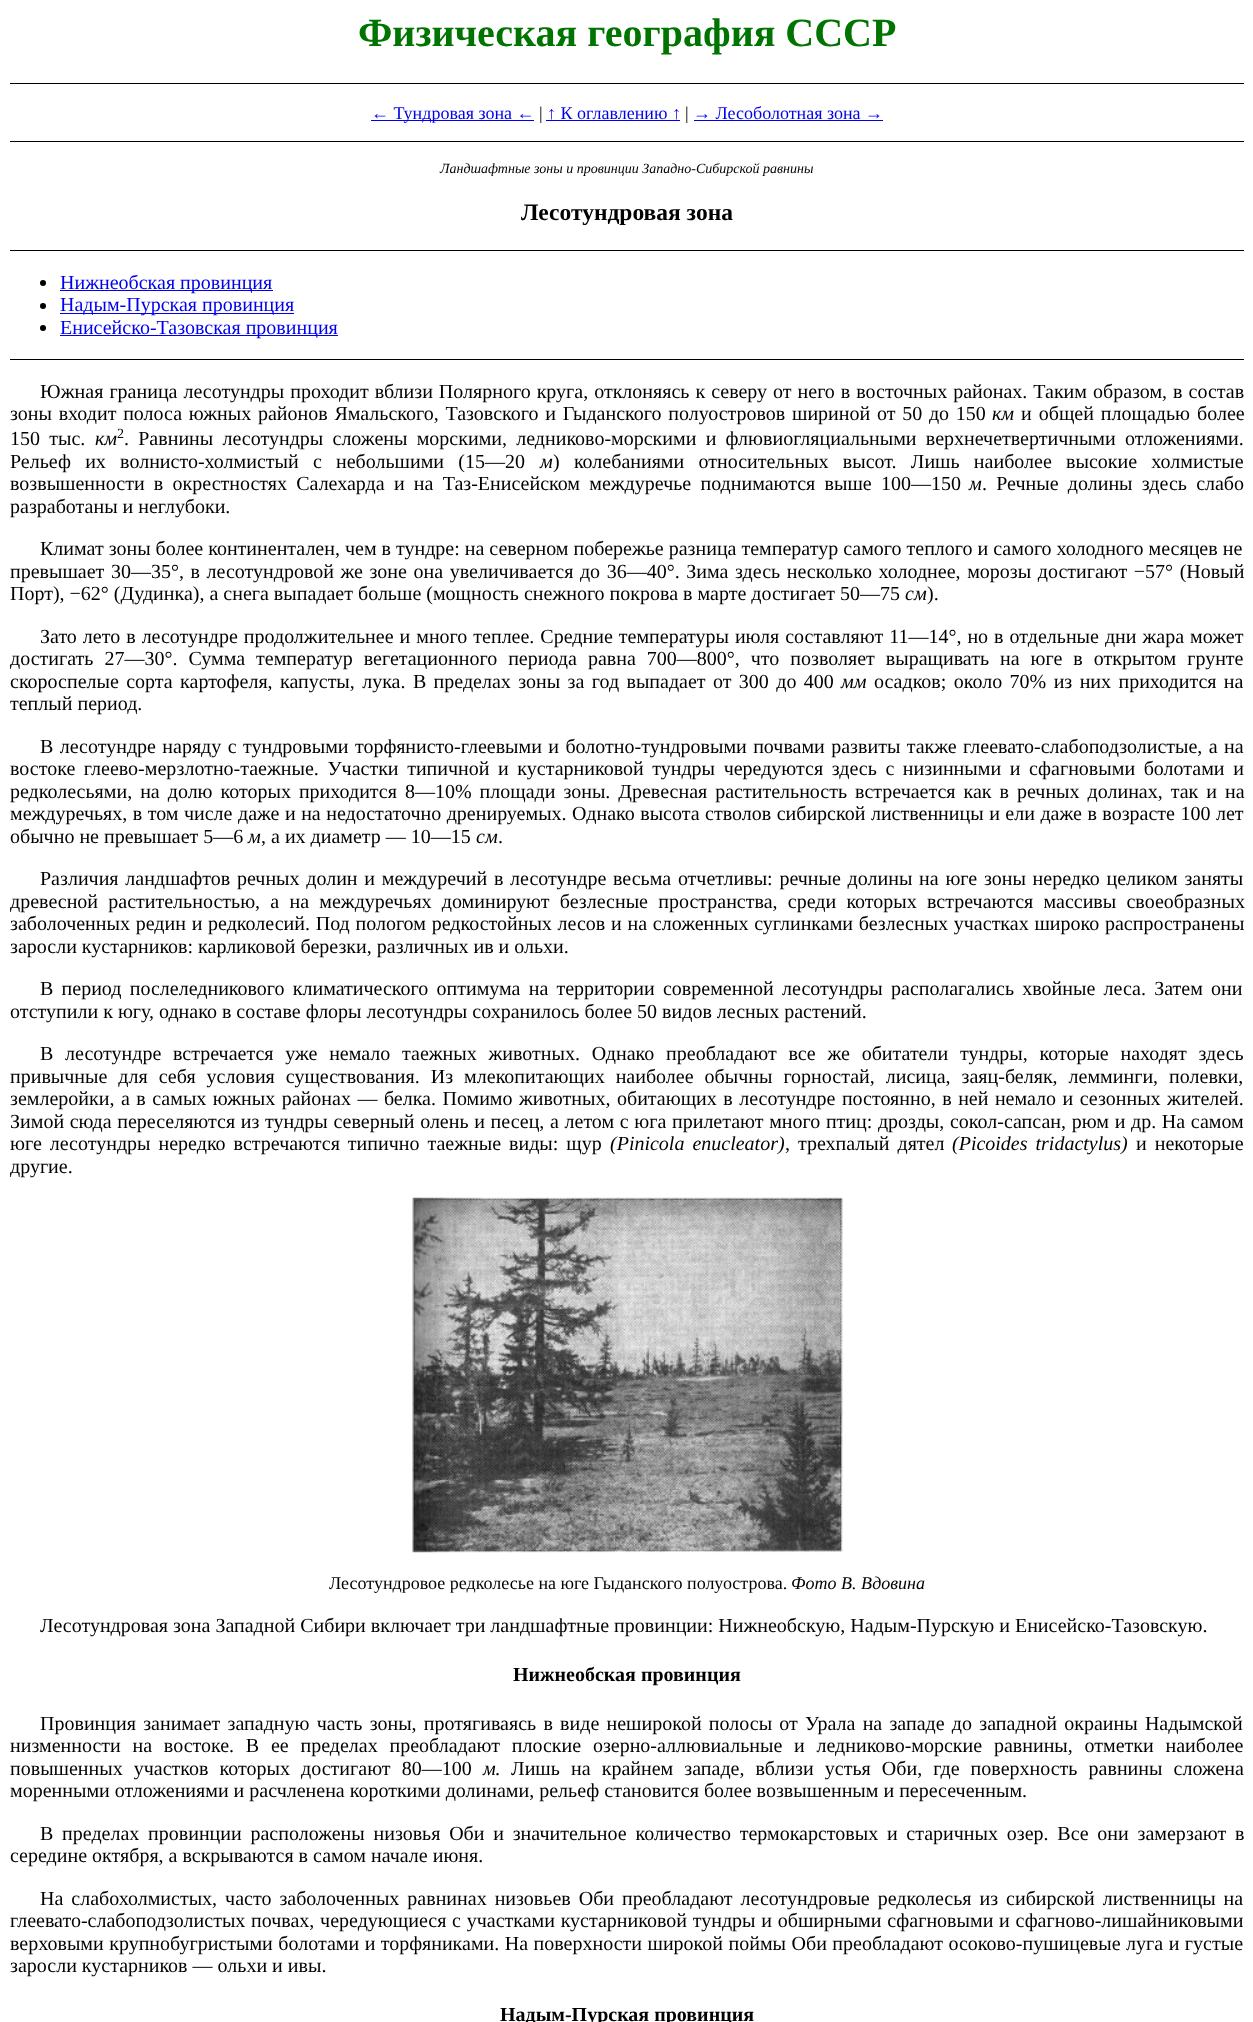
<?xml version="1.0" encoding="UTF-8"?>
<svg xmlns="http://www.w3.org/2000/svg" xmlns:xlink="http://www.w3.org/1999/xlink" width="1253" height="2022">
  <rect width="100%" height="100%" fill="#ffffff" />
  <rect x="10" y="83" width="1234" height="1" fill="#000000" />
  <rect x="10" y="141" width="1234" height="1" fill="#000000" />
  <rect x="371" y="120" width="163" height="1" fill="#0000ee" />
  <rect x="546" y="120" width="134" height="1" fill="#0000ee" />
  <rect x="694" y="120" width="189" height="1" fill="#0000ee" />
  <rect x="10" y="250" width="1234" height="1" fill="#000000" />
  <rect x="10" y="359" width="1234" height="1" fill="#000000" />
  <circle cx="43" cy="283" r="3" fill="#000000" />
  <rect x="60" y="290" width="213" height="1" fill="#0000ee" />
  <circle cx="43" cy="306" r="3" fill="#000000" />
  <rect x="60" y="313" width="234" height="1" fill="#0000ee" />
  <circle cx="43" cy="328" r="3" fill="#000000" />
  <rect x="60" y="335" width="278" height="1" fill="#0000ee" />
  <image x="412" y="1197" width="431" height="356" xlink:href="image1.png" />
  <text x="358" y="46" style="font-family: Liberation Serif; font-size: 40px; font-weight: bold; fill: #007400">Физическая география СССР</text>
  <text x="371" y="119" style="font-family: Liberation Serif; font-size: 18px; fill: #0000ee">← Тундровая зона ←</text>
  <text x="539" y="119" style="font-family: Liberation Serif; font-size: 18px; fill: #000000">|</text>
  <text x="547" y="119" style="font-family: Liberation Serif; font-size: 18px; fill: #0000ee">↑ К оглавлению ↑</text>
  <text x="685" y="119" style="font-family: Liberation Serif; font-size: 18px; fill: #000000">|</text>
  <text x="693" y="119" style="font-family: Liberation Serif; font-size: 18px; fill: #0000ee">→ Лесоболотная зона →</text>
  <text x="440" y="173" style="font-family: Liberation Serif; font-size: 14px; font-style: italic; fill: #000000">Ландшафтные зоны и провинции Западно-Сибирской равнины</text>
  <text x="521" y="220" style="font-family: Liberation Serif; font-size: 23.5px; font-weight: bold; fill: #000000">Лесотундровая зона</text>
  <text x="60" y="289" style="font-family: Liberation Serif; font-size: 20px; fill: #0000ee">Нижнеобская провинция</text>
  <text x="60" y="311" style="font-family: Liberation Serif; font-size: 20px; fill: #0000ee">Надым-Пурская провинция</text>
  <text x="60" y="334" style="font-family: Liberation Serif; font-size: 20px; fill: #0000ee">Енисейско-Тазовская провинция</text>
  <text x="40" y="398" word-spacing="1" style="font-family: Liberation Serif; font-size: 20px; fill: #000000">Южная граница лесотундры проходит вблизи Полярного круга, отклоняясь к северу от него в восточных районах. Таким образом, в состав</text>
  <text x="10" y="420" word-spacing="1.75" style="font-family: Liberation Serif; font-size: 20px; fill: #000000">зоны входит полоса южных районов Ямальского, Тазовского и Гыданского полуостровов шириной от 50 до 150</text>
  <text x="992" y="420" style="font-family: Liberation Serif; font-size: 20px; font-style: italic; fill: #000000">км</text>
  <text x="1021" y="420" word-spacing="2" style="font-family: Liberation Serif; font-size: 20px; fill: #000000">и общей площадью более</text>
  <text x="10" y="445" word-spacing="4.25" style="font-family: Liberation Serif; font-size: 20px; fill: #000000">150 тыс.</text>
  <text x="95" y="445" style="font-family: Liberation Serif; font-size: 20px; font-style: italic; fill: #000000">км</text>
  <text x="117" y="438" style="font-family: Liberation Serif; font-size: 14px; fill: #000000">2</text>
  <text x="124" y="445" word-spacing="4.25" style="font-family: Liberation Serif; font-size: 20px; fill: #000000">. Равнины лесотундры сложены морскими, ледниково-морскими и флювиогляциальными верхнечетвертичными отложениями.</text>
  <text x="10" y="468" word-spacing="9.25" style="font-family: Liberation Serif; font-size: 20px; fill: #000000">Рельеф их волнисто-холмистый с небольшими (15—20</text>
  <text x="540" y="468" style="font-family: Liberation Serif; font-size: 20px; font-style: italic; fill: #000000">м</text>
  <text x="553" y="468" word-spacing="9.25" style="font-family: Liberation Serif; font-size: 20px; fill: #000000">) колебаниями относительных высот. Лишь наиболее высокие холмистые</text>
  <text x="10" y="490" word-spacing="4.25" style="font-family: Liberation Serif; font-size: 20px; fill: #000000">возвышенности в окрестностях Салехарда и на Таз-Енисейском междуречье поднимаются выше 100—150</text>
  <text x="969" y="490" style="font-family: Liberation Serif; font-size: 20px; font-style: italic; fill: #000000">м</text>
  <text x="982" y="490" word-spacing="4.25" style="font-family: Liberation Serif; font-size: 20px; fill: #000000">. Речные долины здесь слабо</text>
  <text x="10" y="513" style="font-family: Liberation Serif; font-size: 20px; fill: #000000">разработаны и неглубоки.</text>
  <text x="40" y="555" style="font-family: Liberation Serif; font-size: 20px; fill: #000000">Климат зоны более континентален, чем в тундре: на северном побережье разница температур самого теплого и самого холодного месяцев не</text>
  <text x="10" y="578" word-spacing="1.6" style="font-family: Liberation Serif; font-size: 20px; fill: #000000">превышает 30—35°, в лесотундровой же зоне она увеличивается до 36—40°. Зима здесь несколько холоднее, морозы достигают −57° (Новый</text>
  <text x="10" y="600" style="font-family: Liberation Serif; font-size: 20px; fill: #000000">Порт), −62° (Дудинка), а снега выпадает больше (мощность снежного покрова в марте достигает 50—75</text>
  <text x="905" y="600" style="font-family: Liberation Serif; font-size: 20px; font-style: italic; fill: #000000">см</text>
  <text x="927" y="600" style="font-family: Liberation Serif; font-size: 20px; fill: #000000">).</text>
  <text x="40" y="643" word-spacing="1" style="font-family: Liberation Serif; font-size: 20px; fill: #000000">Зато лето в лесотундре продолжительнее и много теплее. Средние температуры июля составляют 11—14°, но в отдельные дни жара может</text>
  <text x="10" y="665" word-spacing="6" style="font-family: Liberation Serif; font-size: 20px; fill: #000000">достигать 27—30°. Сумма температур вегетационного периода равна 700—800°, что позволяет выращивать на юге в открытом грунте</text>
  <text x="10" y="688" word-spacing="2.4" style="font-family: Liberation Serif; font-size: 20px; fill: #000000">скороспелые сорта картофеля, капусты, лука. В пределах зоны за год выпадает от 300 до 400</text>
  <text x="841" y="688" style="font-family: Liberation Serif; font-size: 20px; font-style: italic; fill: #000000">мм</text>
  <text x="874" y="688" word-spacing="2.4" style="font-family: Liberation Serif; font-size: 20px; fill: #000000">осадков; около 70% из них приходится на</text>
  <text x="10" y="710" style="font-family: Liberation Serif; font-size: 20px; fill: #000000">теплый период.</text>
  <text x="40" y="753" word-spacing="1.4" style="font-family: Liberation Serif; font-size: 20px; fill: #000000">В лесотундре наряду с тундровыми торфянисто-глеевыми и болотно-тундровыми почвами развиты также глеевато-слабоподзолистые, а на</text>
  <text x="10" y="775" word-spacing="3.6" style="font-family: Liberation Serif; font-size: 20px; fill: #000000">востоке глеево-мерзлотно-таежные. Участки типичной и кустарниковой тундры чередуются здесь с низинными и сфагновыми болотами и</text>
  <text x="10" y="798" word-spacing="3" style="font-family: Liberation Serif; font-size: 20px; fill: #000000">редколесьями, на долю которых приходится 8—10% площади зоны. Древесная растительность встречается как в речных долинах, так и на</text>
  <text x="10" y="820" word-spacing="0.5" style="font-family: Liberation Serif; font-size: 20px; fill: #000000">междуречьях, в том числе даже и на недостаточно дренируемых. Однако высота стволов сибирской лиственницы и ели даже в возрасте 100 лет</text>
  <text x="10" y="843" style="font-family: Liberation Serif; font-size: 20px; fill: #000000">обычно не превышает 5—6</text>
  <text x="248" y="843" style="font-family: Liberation Serif; font-size: 20px; font-style: italic; fill: #000000">м</text>
  <text x="261" y="843" style="font-family: Liberation Serif; font-size: 20px; fill: #000000">, а их диаметр — 10—15</text>
  <text x="476" y="843" style="font-family: Liberation Serif; font-size: 20px; font-style: italic; fill: #000000">см</text>
  <text x="498" y="843" style="font-family: Liberation Serif; font-size: 20px; fill: #000000">.</text>
  <text x="40" y="885" word-spacing="1.75" style="font-family: Liberation Serif; font-size: 20px; fill: #000000">Различия ландшафтов речных долин и междуречий в лесотундре весьма отчетливы: речные долины на юге зоны нередко целиком заняты</text>
  <text x="10" y="908" word-spacing="5.25" style="font-family: Liberation Serif; font-size: 20px; fill: #000000">древесной растительностью, а на междуречьях доминируют безлесные пространства, среди которых встречаются массивы своеобразных</text>
  <text x="10" y="930" word-spacing="0.75" style="font-family: Liberation Serif; font-size: 20px; fill: #000000">заболоченных редин и редколесий. Под пологом редкостойных лесов и на сложенных суглинками безлесных участках широко распространены</text>
  <text x="10" y="953" style="font-family: Liberation Serif; font-size: 20px; fill: #000000">заросли кустарников: карликовой березки, различных ив и ольхи.</text>
  <text x="40" y="995" word-spacing="3.25" style="font-family: Liberation Serif; font-size: 20px; fill: #000000">В период послеледникового климатического оптимума на территории современной лесотундры располагались хвойные леса. Затем они</text>
  <text x="10" y="1018" style="font-family: Liberation Serif; font-size: 20px; fill: #000000">отступили к югу, однако в составе флоры лесотундры сохранилось более 50 видов лесных растений.</text>
  <text x="40" y="1060" word-spacing="6.75" style="font-family: Liberation Serif; font-size: 20px; fill: #000000">В лесотундре встречается уже немало таежных животных. Однако преобладают все же обитатели тундры, которые находят здесь</text>
  <text x="10" y="1083" word-spacing="6" style="font-family: Liberation Serif; font-size: 20px; fill: #000000">привычные для себя условия существования. Из млекопитающих наиболее обычны горностай, лисица, заяц-беляк, лемминги, полевки,</text>
  <text x="10" y="1105" word-spacing="1.5" style="font-family: Liberation Serif; font-size: 20px; fill: #000000">землеройки, а в самых южных районах — белка. Помимо животных, обитающих в лесотундре постоянно, в ней немало и сезонных жителей.</text>
  <text x="10" y="1128" word-spacing="0.65" style="font-family: Liberation Serif; font-size: 20px; fill: #000000">Зимой сюда переселяются из тундры северный олень и песец, а летом с юга прилетают много птиц: дрозды, сокол-сапсан, рюм и др. На самом</text>
  <text x="10" y="1150" word-spacing="3" style="font-family: Liberation Serif; font-size: 20px; fill: #000000">юге лесотундры нередко встречаются типично таежные виды: щур</text>
  <text x="610" y="1150" word-spacing="3" style="font-family: Liberation Serif; font-size: 20px; font-style: italic; fill: #000000">(Pinicola enucleator)</text>
  <text x="785" y="1150" word-spacing="3" style="font-family: Liberation Serif; font-size: 20px; fill: #000000">, трехпалый дятел</text>
  <text x="952" y="1150" word-spacing="3" style="font-family: Liberation Serif; font-size: 20px; font-style: italic; fill: #000000">(Picoides tridactylus)</text>
  <text x="1136" y="1150" word-spacing="3" style="font-family: Liberation Serif; font-size: 20px; fill: #000000">и некоторые</text>
  <text x="10" y="1173" style="font-family: Liberation Serif; font-size: 20px; fill: #000000">другие.</text>
  <text x="329" y="1589" style="font-family: Liberation Serif; font-size: 18px; fill: #000000">Лесотундровое редколесье на юге Гыданского полуострова.</text>
  <text x="791" y="1589" style="font-family: Liberation Serif; font-size: 18px; font-style: italic; fill: #000000">Фото В. Вдовина</text>
  <text x="40" y="1632" style="font-family: Liberation Serif; font-size: 20px; fill: #000000">Лесотундровая зона Западной Сибири включает три ландшафтные провинции: Нижнеобскую, Надым-Пурскую и Енисейско-Тазовскую.</text>
  <text x="513" y="1681" style="font-family: Liberation Serif; font-size: 20px; font-weight: bold; fill: #000000">Нижнеобская провинция</text>
  <text x="40" y="1730" word-spacing="2.25" style="font-family: Liberation Serif; font-size: 20px; fill: #000000">Провинция занимает западную часть зоны, протягиваясь в виде неширокой полосы от Урала на западе до западной окраины Надымской</text>
  <text x="10" y="1752" word-spacing="6.75" style="font-family: Liberation Serif; font-size: 20px; fill: #000000">низменности на востоке. В ее пределах преобладают плоские озерно-аллювиальные и ледниково-морские равнины, отметки наиболее</text>
  <text x="10" y="1775" word-spacing="6.1" style="font-family: Liberation Serif; font-size: 20px; fill: #000000">повышенных участков которых достигают 80—100</text>
  <text x="483" y="1775" style="font-family: Liberation Serif; font-size: 20px; font-style: italic; fill: #000000">м</text>
  <text x="495" y="1775" word-spacing="6.1" style="font-family: Liberation Serif; font-size: 20px; fill: #000000">. Лишь на крайнем западе, вблизи устья Оби, где поверхность равнины сложена</text>
  <text x="10" y="1797" style="font-family: Liberation Serif; font-size: 20px; fill: #000000">моренными отложениями и расчленена короткими долинами, рельеф становится более возвышенным и пересеченным.</text>
  <text x="40" y="1840" word-spacing="3.75" style="font-family: Liberation Serif; font-size: 20px; fill: #000000">В пределах провинции расположены низовья Оби и значительное количество термокарстовых и старичных озер. Все они замерзают в</text>
  <text x="10" y="1862" style="font-family: Liberation Serif; font-size: 20px; fill: #000000">середине октября, а вскрываются в самом начале июня.</text>
  <text x="40" y="1905" word-spacing="3" style="font-family: Liberation Serif; font-size: 20px; fill: #000000">На слабохолмистых, часто заболоченных равнинах низовьев Оби преобладают лесотундровые редколесья из сибирской лиственницы на</text>
  <text x="10" y="1927" word-spacing="0.75" style="font-family: Liberation Serif; font-size: 20px; fill: #000000">глеевато-слабоподзолистых почвах, чередующиеся с участками кустарниковой тундры и обширными сфагновыми и сфагново-лишайниковыми</text>
  <text x="10" y="1950" word-spacing="0.5" style="font-family: Liberation Serif; font-size: 20px; fill: #000000">верховыми крупнобугристыми болотами и торфяниками. На поверхности широкой поймы Оби преобладают осоково-пушицевые луга и густые</text>
  <text x="10" y="1972" style="font-family: Liberation Serif; font-size: 20px; fill: #000000">заросли кустарников — ольхи и ивы.</text>
  <text x="500" y="2021" style="font-family: Liberation Serif; font-size: 20px; font-weight: bold; fill: #000000">Надым-Пурская провинция</text>
</svg>
